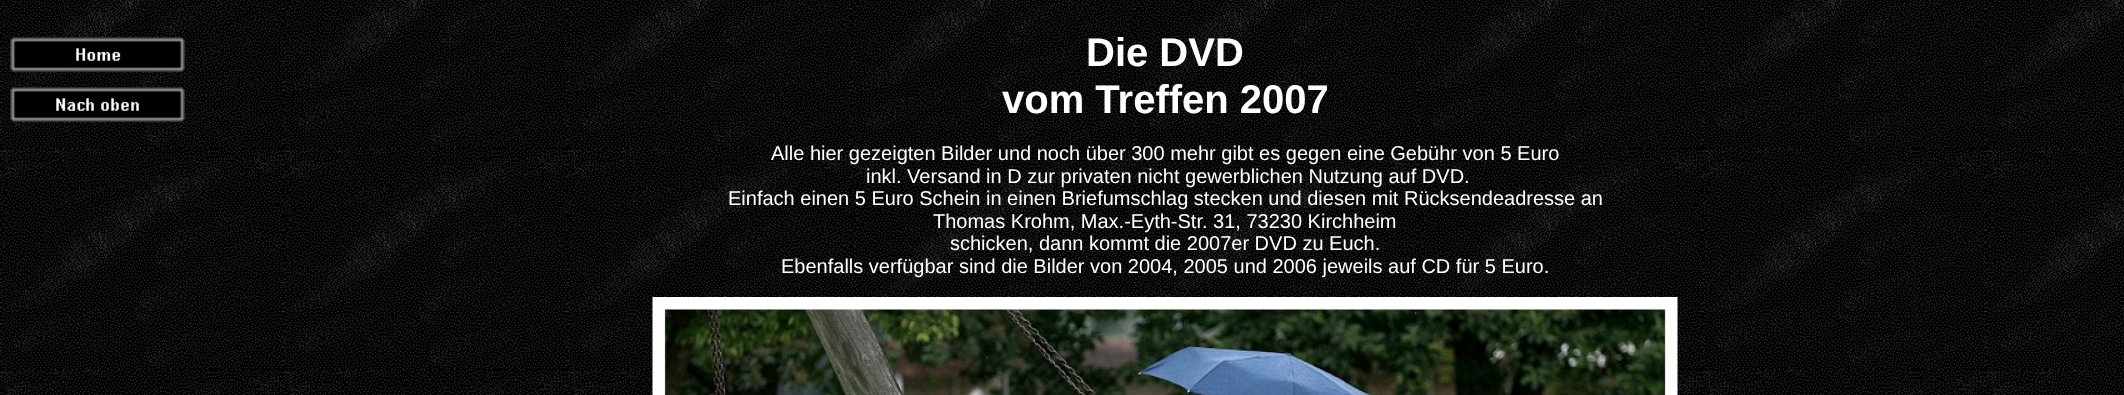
<?xml version="1.0" encoding="UTF-8"?>
<svg xmlns="http://www.w3.org/2000/svg" xmlns:xlink="http://www.w3.org/1999/xlink" width="2124" height="395">
  <rect width="100%" height="100%" fill="#ffffff" />
  <image x="0" y="0" width="2124" height="395" xlink:href="image1.png" />
  <image x="10" y="37" width="175" height="36" xlink:href="image2.png" />
  <image x="10" y="87" width="175" height="36" xlink:href="image3.png" />
  <image x="652" y="297" width="1026" height="98" xlink:href="image4.png" />
  <text x="1086" y="66" style="font-family: Liberation Sans; font-size: 40px; font-weight: bold; fill: #ffffff">Die DVD</text>
  <text x="1002" y="113" style="font-family: Liberation Sans; font-size: 40px; font-weight: bold; fill: #ffffff">vom Treffen 2007</text>
  <text x="771" y="160" style="font-family: Liberation Sans; font-size: 20px; fill: #ffffff">Alle hier gezeigten Bilder und noch über 300 mehr gibt es gegen eine Gebühr von 5 Euro</text>
  <text x="866" y="183" style="font-family: Liberation Sans; font-size: 20px; fill: #ffffff">inkl. Versand in D zur privaten nicht gewerblichen Nutzung auf DVD.</text>
  <text x="728" y="205" style="font-family: Liberation Sans; font-size: 20px; fill: #ffffff">Einfach einen 5 Euro Schein in einen Briefumschlag stecken und diesen mit Rücksendeadresse an</text>
  <text x="933" y="228" style="font-family: Liberation Sans; font-size: 20px; fill: #ffffff">Thomas Krohm, Max.-Eyth-Str. 31, 73230 Kirchheim</text>
  <text x="950" y="250" style="font-family: Liberation Sans; font-size: 20px; fill: #ffffff">schicken, dann kommt die 2007er DVD zu Euch.</text>
  <text x="781" y="273" style="font-family: Liberation Sans; font-size: 20px; fill: #ffffff">Ebenfalls verfügbar sind die Bilder von 2004, 2005 und 2006 jeweils auf CD für 5 Euro.</text>
</svg>
